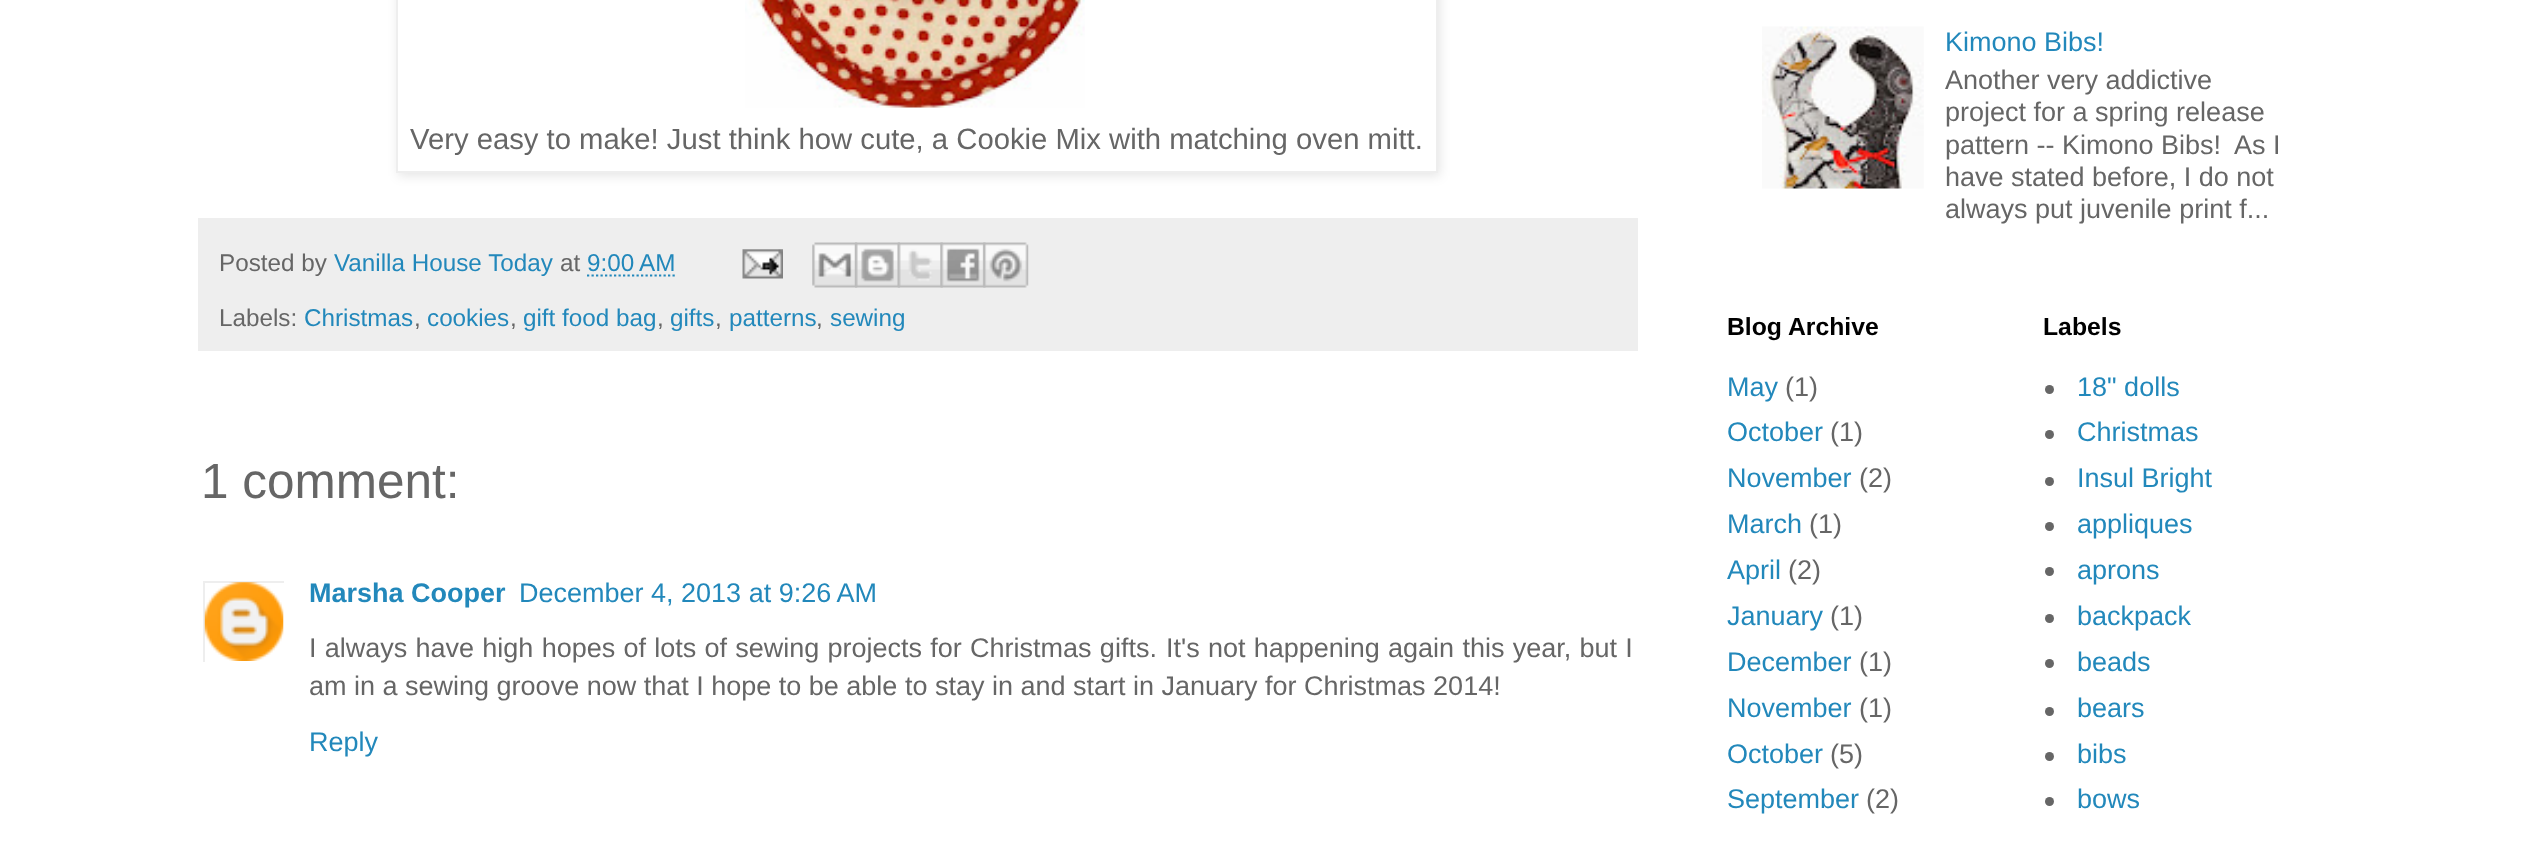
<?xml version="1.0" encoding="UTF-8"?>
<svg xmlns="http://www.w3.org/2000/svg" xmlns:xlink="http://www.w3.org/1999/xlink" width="2530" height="842">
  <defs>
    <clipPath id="clip1"><rect x="203" y="581" width="81" height="81" /></clipPath>
  </defs>
  <rect width="100%" height="100%" fill="#ffffff" />
  <rect x="398" y="-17" width="1042" height="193" fill="#000000" fill-opacity="0.1" filter="blur(5.5px)" />
  <rect x="397" y="-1" width="1040" height="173" fill="#ffffff" stroke="#eeeeee" stroke-width="2" />
  <image x="745" y="0" width="340" height="108" xlink:href="image1.png" />
  <rect x="198" y="218" width="1440" height="133" fill="#eeeeee" />
  <path d="M 587 275.5 h 89" fill="none" stroke="#2288bb" stroke-width="2.2" stroke-dasharray="2.25 2.25" />
  <image x="742" y="249" width="41" height="30" xlink:href="image2.png" />
  <image x="812" y="242" width="46" height="46" xlink:href="image3.png" />
  <image x="855" y="242" width="45" height="46" xlink:href="image4.png" />
  <image x="897" y="242" width="46" height="46" xlink:href="image5.png" />
  <image x="940" y="242" width="46" height="46" xlink:href="image6.png" />
  <image x="983" y="242" width="46" height="46" xlink:href="image7.png" />
  <g clip-path="url(#clip1)">
    <rect x="204" y="582" width="81" height="81" fill="none" stroke="#eeeeee" stroke-width="2" />
  </g>
  <image x="204" y="582" width="80" height="79" xlink:href="image8.png" />
  <image x="1762" y="26" width="162" height="163" xlink:href="image9.png" />
  <circle cx="2049.5" cy="389.5" r="4.5" fill="#666666" />
  <circle cx="2049.5" cy="434.5" r="4.5" fill="#666666" />
  <circle cx="2049.5" cy="481.5" r="4.5" fill="#666666" />
  <circle cx="2049.5" cy="526.5" r="4.5" fill="#666666" />
  <circle cx="2049.5" cy="571.5" r="4.5" fill="#666666" />
  <circle cx="2049.5" cy="618.5" r="4.5" fill="#666666" />
  <circle cx="2049.5" cy="663.5" r="4.5" fill="#666666" />
  <circle cx="2049.5" cy="711.5" r="4.5" fill="#666666" />
  <circle cx="2049.5" cy="756.5" r="4.5" fill="#666666" />
  <circle cx="2049.5" cy="801.5" r="4.5" fill="#666666" />
  <text x="410" y="149" style="font-family: Liberation Sans; font-size: 29.25px; fill: #666666">Very easy to make! Just think how cute, a Cookie Mix with matching oven mitt.</text>
  <text x="219" y="271" style="font-family: Liberation Sans; font-size: 24.25px; fill: #666666">Posted by</text>
  <text x="334" y="271" style="font-family: Liberation Sans; font-size: 24.25px; fill: #2288bb">Vanilla House Today</text>
  <text x="560" y="271" style="font-family: Liberation Sans; font-size: 24.25px; fill: #666666">at</text>
  <text x="587" y="271" style="font-family: Liberation Sans; font-size: 24.25px; fill: #2288bb">9:00 AM</text>
  <text x="219" y="326" style="font-family: Liberation Sans; font-size: 24.25px; fill: #666666">Labels:</text>
  <text x="304" y="326" style="font-family: Liberation Sans; font-size: 24.25px; fill: #2288bb">Christmas</text>
  <text x="414" y="326" style="font-family: Liberation Sans; font-size: 24.25px; fill: #666666">,</text>
  <text x="427" y="326" style="font-family: Liberation Sans; font-size: 24.25px; fill: #2288bb">cookies</text>
  <text x="510" y="326" style="font-family: Liberation Sans; font-size: 24.25px; fill: #666666">,</text>
  <text x="523" y="326" style="font-family: Liberation Sans; font-size: 24.25px; fill: #2288bb">gift food bag</text>
  <text x="657" y="326" style="font-family: Liberation Sans; font-size: 24.25px; fill: #666666">,</text>
  <text x="670" y="326" style="font-family: Liberation Sans; font-size: 24.25px; fill: #2288bb">gifts</text>
  <text x="715" y="326" style="font-family: Liberation Sans; font-size: 24.25px; fill: #666666">,</text>
  <text x="729" y="326" style="font-family: Liberation Sans; font-size: 24.25px; fill: #2288bb">patterns</text>
  <text x="816" y="326" style="font-family: Liberation Sans; font-size: 24.25px; fill: #666666">,</text>
  <text x="830" y="326" style="font-family: Liberation Sans; font-size: 24.25px; fill: #2288bb">sewing</text>
  <text x="201" y="498" style="font-family: Liberation Sans; font-size: 49.5px; fill: #666666">1 comment:</text>
  <text x="309" y="602" style="font-family: Liberation Sans; font-size: 27px; font-weight: bold; fill: #2288bb">Marsha Cooper</text>
  <text x="519" y="602" style="font-family: Liberation Sans; font-size: 27px; fill: #2288bb">December 4, 2013 at 9:26 AM</text>
  <text x="309" y="657" word-spacing="0.75" style="font-family: Liberation Sans; font-size: 27px; fill: #666666">I always have high hopes of lots of sewing projects for Christmas gifts.</text>
  <text x="1166" y="657" word-spacing="0.75" style="font-family: Liberation Sans; font-size: 27px; fill: #666666">It's not happening again this year, but I</text>
  <text x="309" y="695" style="font-family: Liberation Sans; font-size: 27px; fill: #666666">am in a sewing groove now that I hope to be able to stay in and start in January for Christmas 2014!</text>
  <text x="309" y="751" style="font-family: Liberation Sans; font-size: 27px; fill: #2288bb">Reply</text>
  <text x="1945" y="51" style="font-family: Liberation Sans; font-size: 27px; fill: #2288bb">Kimono Bibs!</text>
  <text x="1945" y="89" style="font-family: Liberation Sans; font-size: 27px; fill: #666666">Another very addictive</text>
  <text x="1945" y="121" style="font-family: Liberation Sans; font-size: 27px; fill: #666666">project for a spring release</text>
  <text x="1945" y="154" style="font-family: Liberation Sans; font-size: 27px; fill: #666666">pattern -- Kimono Bibs!</text>
  <text x="2234" y="154" style="font-family: Liberation Sans; font-size: 27px; fill: #666666">As I</text>
  <text x="1945" y="186" style="font-family: Liberation Sans; font-size: 27px; fill: #666666">have stated before, I do not</text>
  <text x="1945" y="218" style="font-family: Liberation Sans; font-size: 27px; fill: #666666">always put juvenile print f...</text>
  <text x="1727" y="335" style="font-family: Liberation Sans; font-size: 24.75px; font-weight: bold; fill: #000000">Blog Archive</text>
  <text x="1727" y="396" style="font-family: Liberation Sans; font-size: 27px; fill: #2288bb">May</text>
  <text x="1785" y="396" style="font-family: Liberation Sans; font-size: 27px; fill: #666666">(1)</text>
  <text x="1727" y="441" style="font-family: Liberation Sans; font-size: 27px; fill: #2288bb">October</text>
  <text x="1830" y="441" style="font-family: Liberation Sans; font-size: 27px; fill: #666666">(1)</text>
  <text x="1727" y="487" style="font-family: Liberation Sans; font-size: 27px; fill: #2288bb">November</text>
  <text x="1859" y="487" style="font-family: Liberation Sans; font-size: 27px; fill: #666666">(2)</text>
  <text x="1727" y="533" style="font-family: Liberation Sans; font-size: 27px; fill: #2288bb">March</text>
  <text x="1809" y="533" style="font-family: Liberation Sans; font-size: 27px; fill: #666666">(1)</text>
  <text x="1727" y="579" style="font-family: Liberation Sans; font-size: 27px; fill: #2288bb">April</text>
  <text x="1788" y="579" style="font-family: Liberation Sans; font-size: 27px; fill: #666666">(2)</text>
  <text x="1727" y="625" style="font-family: Liberation Sans; font-size: 27px; fill: #2288bb">January</text>
  <text x="1830" y="625" style="font-family: Liberation Sans; font-size: 27px; fill: #666666">(1)</text>
  <text x="1727" y="671" style="font-family: Liberation Sans; font-size: 27px; fill: #2288bb">December</text>
  <text x="1859" y="671" style="font-family: Liberation Sans; font-size: 27px; fill: #666666">(1)</text>
  <text x="1727" y="717" style="font-family: Liberation Sans; font-size: 27px; fill: #2288bb">November</text>
  <text x="1859" y="717" style="font-family: Liberation Sans; font-size: 27px; fill: #666666">(1)</text>
  <text x="1727" y="763" style="font-family: Liberation Sans; font-size: 27px; fill: #2288bb">October</text>
  <text x="1830" y="763" style="font-family: Liberation Sans; font-size: 27px; fill: #666666">(5)</text>
  <text x="1727" y="808" style="font-family: Liberation Sans; font-size: 27px; fill: #2288bb">September</text>
  <text x="1866" y="808" style="font-family: Liberation Sans; font-size: 27px; fill: #666666">(2)</text>
  <text x="2043" y="335" style="font-family: Liberation Sans; font-size: 24.75px; font-weight: bold; fill: #000000">Labels</text>
  <text x="2077" y="396" style="font-family: Liberation Sans; font-size: 27px; fill: #2288bb">18" dolls</text>
  <text x="2077" y="441" style="font-family: Liberation Sans; font-size: 27px; fill: #2288bb">Christmas</text>
  <text x="2077" y="487" style="font-family: Liberation Sans; font-size: 27px; fill: #2288bb">Insul Bright</text>
  <text x="2077" y="533" style="font-family: Liberation Sans; font-size: 27px; fill: #2288bb">appliques</text>
  <text x="2077" y="579" style="font-family: Liberation Sans; font-size: 27px; fill: #2288bb">aprons</text>
  <text x="2077" y="625" style="font-family: Liberation Sans; font-size: 27px; fill: #2288bb">backpack</text>
  <text x="2077" y="671" style="font-family: Liberation Sans; font-size: 27px; fill: #2288bb">beads</text>
  <text x="2077" y="717" style="font-family: Liberation Sans; font-size: 27px; fill: #2288bb">bears</text>
  <text x="2077" y="763" style="font-family: Liberation Sans; font-size: 27px; fill: #2288bb">bibs</text>
  <text x="2077" y="808" style="font-family: Liberation Sans; font-size: 27px; fill: #2288bb">bows</text>
</svg>
